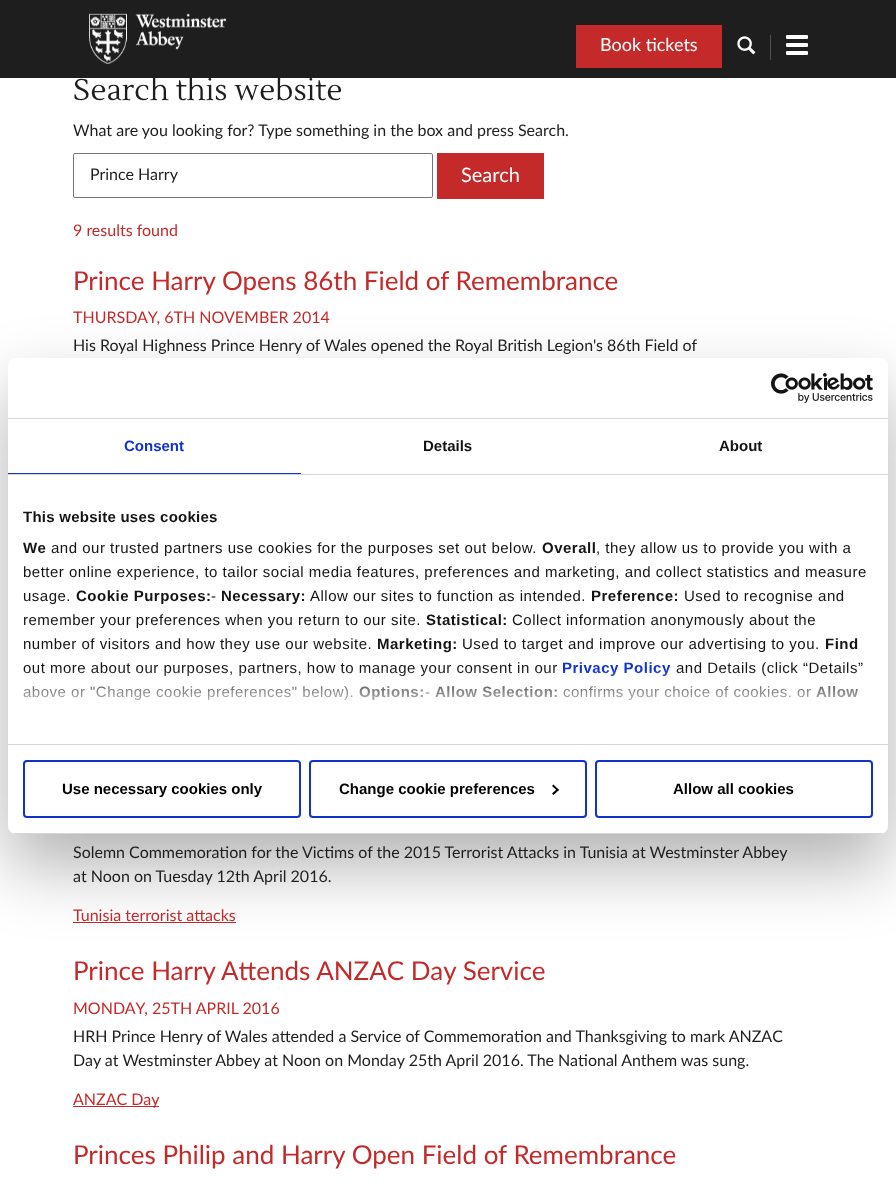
<?xml version="1.0" encoding="UTF-8"?>
<svg xmlns="http://www.w3.org/2000/svg" xmlns:xlink="http://www.w3.org/1999/xlink" width="896" height="1191">
  <defs>
    <clipPath id="clip1"><rect x="8" y="358" width="880" height="476" rx="8" /></clipPath>
    <linearGradient id="g1" gradientUnits="userSpaceOnUse" x1="442" y1="744" x2="442" y2="669"><stop offset="0" stop-color="#ffffff" /><stop offset="0.5" stop-color="#ffffff" stop-opacity="0.8" /><stop offset="1" stop-color="#ffffff" stop-opacity="0" /></linearGradient>
  </defs>
  <rect width="100%" height="100%" fill="#ffffff" />
  <rect width="896" height="78" fill="#1e1e1e" />
  <image x="89" y="13" width="137" height="51" xlink:href="image1.png" />
  <rect x="576" y="25" width="146" height="43" fill="#c42a2a" />
  <rect x="770" y="35" width="1" height="25" fill="#544e4e" />
  <image x="737" y="36" width="19" height="19" xlink:href="image2.png" />
  <rect x="786" y="35" width="22" height="4" rx="1" fill="#ffffff" />
  <rect x="786" y="43" width="22" height="4" rx="1" fill="#ffffff" />
  <rect x="786" y="51" width="22" height="4" rx="1" fill="#ffffff" />
  <rect x="73.5" y="153.5" width="359" height="44" rx="1.5" fill="none" stroke="#767676" />
  <rect x="437" y="153" width="107" height="46" fill="#c42a2a" />
  <rect x="73" y="922" width="163" height="1" fill="#c42a2a" />
  <rect x="73" y="1106" width="86" height="1" fill="#c42a2a" />
  <rect x="8" y="390" width="880" height="476" rx="8" fill="#000000" fill-opacity="0.3" filter="blur(34px)" />
  <rect x="8" y="358" width="880" height="476" rx="8" fill="#ffffff" />
  <rect x="8" y="418" width="880" height="1" fill="#d6d6d6" />
  <image x="771" y="373" width="102" height="30" xlink:href="image3.png" />
  <rect x="8" y="474" width="880" height="1" fill="#d6d6d6" />
  <rect x="8" y="473" width="293" height="1" fill="#1032cf" />
  <rect x="8" y="744" width="880" height="1" fill="#d6d6d6" />
  <g clip-path="url(#clip1)">
    <rect x="8" y="833" width="880" height="1" fill="#d6d6d6" />
  </g>
  <rect x="24" y="761" width="276" height="56" rx="3" fill="none" stroke="#1032cf" stroke-width="2" />
  <rect x="310" y="761" width="276" height="56" rx="3" fill="none" stroke="#1032cf" stroke-width="2" />
  <path d="M 553.5 784.5 l 5.5 5.5 l -1.5 1 l -5.5 -5 z" fill="#000000" />
  <path d="M 557.5 788.5 l 1.5 1.5 l -5.5 5 l -1.5 -1.5 z" fill="#000000" />
  <rect x="596" y="761" width="276" height="56" rx="3" fill="none" stroke="#1032cf" stroke-width="2" />
  <text x="600" y="51" style="font-family: Lato; font-size: 18px; fill: #ffffff">Book tickets</text>
  <text x="73" y="100" style="font-family: Lustria; font-size: 30px; fill: #1e1e1e">Search this website</text>
  <text x="73" y="136" style="font-family: Lato; font-size: 16px; fill: #1e1e1e">What are you looking for? Type something in the box and press Search.</text>
  <text x="90" y="180" style="font-family: Lato; font-size: 16px; fill: #1e1e1e">Prince Harry</text>
  <text x="461" y="182" style="font-family: Lato; font-size: 20px; fill: #ffffff">Search</text>
  <text x="73" y="236" style="font-family: Lato; font-size: 16px; fill: #c42a2a">9 results found</text>
  <text x="73" y="290" style="font-family: Lato; font-size: 26px; fill: #c42a2a">Prince Harry Opens 86th Field of Remembrance</text>
  <text x="73" y="323" style="font-family: Lato; font-size: 16px; fill: #c42a2a">THURSDAY, 6TH NOVEMBER 2014</text>
  <text x="73" y="351" style="font-family: Lato; font-size: 16px; fill: #1e1e1e">His Royal Highness Prince Henry of Wales opened the Royal British Legion's 86th Field of</text>
  <text x="73" y="858" style="font-family: Lato; font-size: 16px; fill: #1e1e1e">Solemn Commemoration for the Victims of the 2015 Terrorist Attacks in Tunisia at Westminster Abbey</text>
  <text x="73" y="882" style="font-family: Lato; font-size: 16px; fill: #1e1e1e">at Noon on Tuesday 12th April 2016.</text>
  <text x="73" y="921" style="font-family: Lato; font-size: 16px; fill: #c42a2a">Tunisia terrorist attacks</text>
  <text x="73" y="980" style="font-family: Lato; font-size: 26px; fill: #c42a2a">Prince Harry Attends ANZAC Day Service</text>
  <text x="73" y="1014" style="font-family: Lato; font-size: 16px; fill: #c42a2a">MONDAY, 25TH APRIL 2016</text>
  <text x="73" y="1042" style="font-family: Lato; font-size: 16px; fill: #1e1e1e">HRH Prince Henry of Wales attended a Service of Commemoration and Thanksgiving to mark ANZAC</text>
  <text x="73" y="1066" style="font-family: Lato; font-size: 16px; fill: #1e1e1e">Day at Westminster Abbey at Noon on Monday 25th April 2016. The National Anthem was sung.</text>
  <text x="73" y="1105" style="font-family: Lato; font-size: 16px; fill: #c42a2a">ANZAC Day</text>
  <text x="73" y="1164" style="font-family: Lato; font-size: 26px; fill: #c42a2a">Princes Philip and Harry Open Field of Remembrance</text>
  <text x="124" y="451" style="font-family: Liberation Sans; font-size: 15px; font-weight: bold; fill: #1032cf">Consent</text>
  <text x="423" y="451" style="font-family: Liberation Sans; font-size: 15px; font-weight: bold; fill: #141414">Details</text>
  <text x="719" y="451" style="font-family: Liberation Sans; font-size: 15px; font-weight: bold; fill: #141414">About</text>
  <text x="23" y="522" style="font-family: Liberation Sans; font-size: 15px; font-weight: bold; letter-spacing: 0.25px; fill: #141414">This website uses cookies</text>
  <text x="23" y="553" style="font-family: Liberation Sans; font-size: 15px; font-weight: bold; letter-spacing: 0.5px; fill: #141414">We</text>
  <text x="51" y="553" style="font-family: Liberation Sans; font-size: 15px; letter-spacing: 0.5px; fill: #141414">and our trusted partners use cookies for the purposes set out below.</text>
  <text x="542" y="553" style="font-family: Liberation Sans; font-size: 15px; font-weight: bold; letter-spacing: 0.5px; fill: #141414">Overall</text>
  <text x="596" y="553" style="font-family: Liberation Sans; font-size: 15px; letter-spacing: 0.5px; fill: #141414">, they allow us to provide you with a</text>
  <text x="23" y="577" style="font-family: Liberation Sans; font-size: 15px; letter-spacing: 0.5px; fill: #141414">better online experience, to tailor social media features, preferences and marketing, and collect statistics and measure</text>
  <text x="23" y="601" style="font-family: Liberation Sans; font-size: 15px; letter-spacing: 0.5px; fill: #141414">usage.</text>
  <text x="76" y="601" style="font-family: Liberation Sans; font-size: 15px; font-weight: bold; letter-spacing: 0.5px; fill: #141414">Cookie Purposes:</text>
  <text x="211" y="601" style="font-family: Liberation Sans; font-size: 15px; letter-spacing: 0.5px; fill: #141414">-</text>
  <text x="221" y="601" style="font-family: Liberation Sans; font-size: 15px; font-weight: bold; letter-spacing: 0.5px; fill: #141414">Necessary:</text>
  <text x="310" y="601" style="font-family: Liberation Sans; font-size: 15px; letter-spacing: 0.5px; fill: #141414">Allow our sites to function as intended.</text>
  <text x="591" y="601" style="font-family: Liberation Sans; font-size: 15px; font-weight: bold; letter-spacing: 0.5px; fill: #141414">Preference:</text>
  <text x="684" y="601" style="font-family: Liberation Sans; font-size: 15px; letter-spacing: 0.5px; fill: #141414">Used to recognise and</text>
  <text x="23" y="625" style="font-family: Liberation Sans; font-size: 15px; letter-spacing: 0.5px; fill: #141414">remember your preferences when you return to our site.</text>
  <text x="426" y="625" style="font-family: Liberation Sans; font-size: 15px; font-weight: bold; letter-spacing: 0.5px; fill: #141414">Statistical:</text>
  <text x="512" y="625" style="font-family: Liberation Sans; font-size: 15px; letter-spacing: 0.5px; fill: #141414">Collect information anonymously about the</text>
  <text x="23" y="649" style="font-family: Liberation Sans; font-size: 15px; letter-spacing: 0.5px; fill: #141414">number of visitors and how they use our website.</text>
  <text x="377" y="649" style="font-family: Liberation Sans; font-size: 15px; font-weight: bold; letter-spacing: 0.5px; fill: #141414">Marketing:</text>
  <text x="462" y="649" style="font-family: Liberation Sans; font-size: 15px; letter-spacing: 0.5px; fill: #141414">Used to target and improve our advertising to you.</text>
  <text x="825" y="649" style="font-family: Liberation Sans; font-size: 15px; font-weight: bold; letter-spacing: 0.5px; fill: #141414">Find</text>
  <text x="23" y="673" style="font-family: Liberation Sans; font-size: 15px; letter-spacing: 0.5px; fill: #141414">out more about our purposes, partners, how to manage your consent in our</text>
  <text x="562" y="673" style="font-family: Liberation Sans; font-size: 15px; font-weight: bold; letter-spacing: 0.5px; fill: #1032cf">Privacy Policy</text>
  <text x="676" y="673" style="font-family: Liberation Sans; font-size: 15px; letter-spacing: 0.5px; fill: #141414">and Details (click “Details”</text>
  <text x="23" y="697" style="font-family: Liberation Sans; font-size: 15px; letter-spacing: 0.5px; fill: #141414">above or "Change cookie preferences" below).</text>
  <text x="359" y="697" style="font-family: Liberation Sans; font-size: 15px; font-weight: bold; letter-spacing: 0.5px; fill: #141414">Options:</text>
  <text x="425" y="697" style="font-family: Liberation Sans; font-size: 15px; letter-spacing: 0.5px; fill: #141414">-</text>
  <text x="435" y="697" style="font-family: Liberation Sans; font-size: 15px; font-weight: bold; letter-spacing: 0.5px; fill: #141414">Allow Selection:</text>
  <text x="563" y="697" style="font-family: Liberation Sans; font-size: 15px; letter-spacing: 0.5px; fill: #141414">confirms your choice of cookies. or</text>
  <text x="816" y="697" style="font-family: Liberation Sans; font-size: 15px; font-weight: bold; letter-spacing: 0.5px; fill: #141414">Allow</text>
  <rect x="23" y="670" width="836" height="31" fill="url(#g1)" />
  <text x="62" y="794" style="font-family: Liberation Sans; font-size: 15px; font-weight: bold; fill: #000000">Use necessary cookies only</text>
  <text x="339" y="794" style="font-family: Liberation Sans; font-size: 15px; font-weight: bold; fill: #000000">Change cookie preferences</text>
  <text x="673" y="794" style="font-family: Liberation Sans; font-size: 15px; font-weight: bold; fill: #000000">Allow all cookies</text>
</svg>
